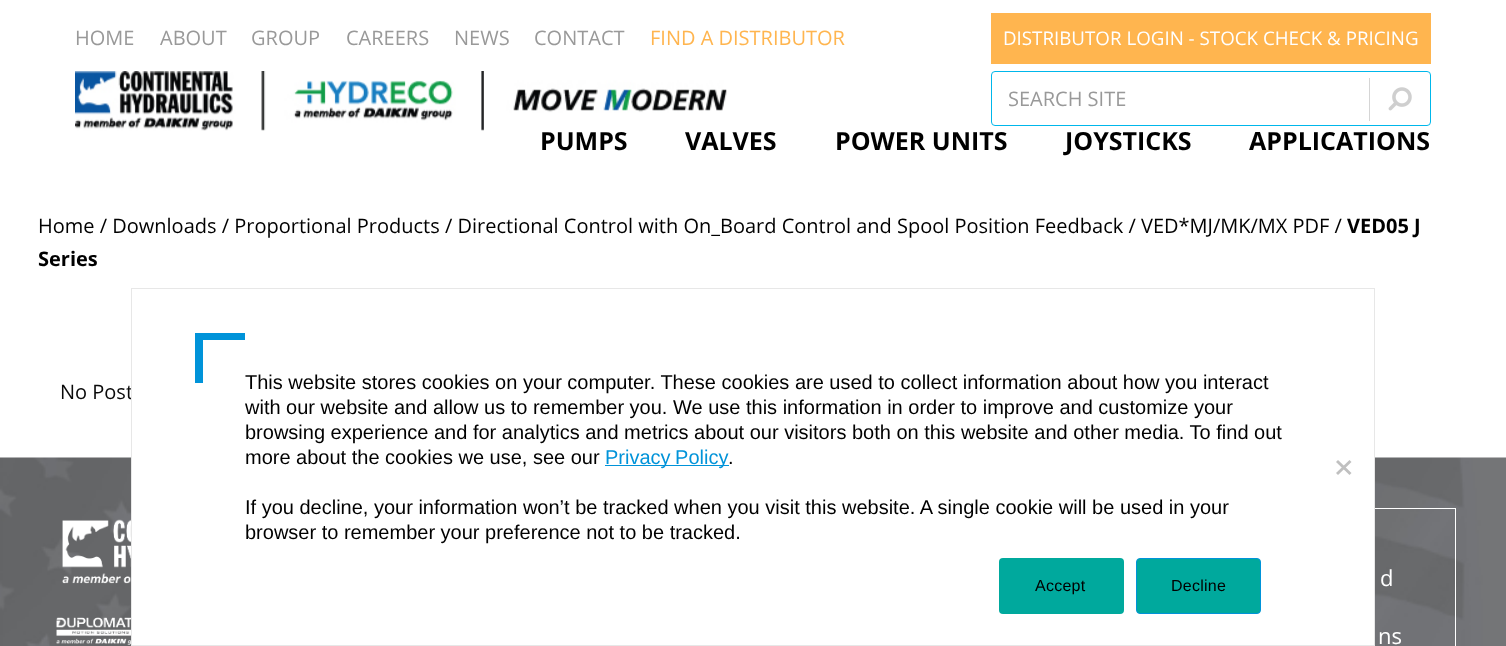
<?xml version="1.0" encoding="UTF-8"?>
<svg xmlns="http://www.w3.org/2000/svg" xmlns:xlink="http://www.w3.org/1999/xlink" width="1506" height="646">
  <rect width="100%" height="100%" fill="#ffffff" />
  <rect x="991" y="13" width="440" height="51" fill="#ffb54f" />
  <rect x="991.5" y="71.5" width="439" height="54" rx="3.5" fill="none" stroke="#00b7eb" />
  <rect x="1369" y="78" width="1" height="43" fill="#d5d5d5" />
  <image x="1388" y="87" width="24" height="24" xlink:href="image1.png" />
  <image x="75" y="71" width="652" height="60" xlink:href="image2.png" />
  <image x="0" y="457" width="1506" height="189" xlink:href="image3.png" />
  <image x="62" y="519" width="69" height="65" xlink:href="image4.png" />
  <image x="56" y="617" width="75" height="28" xlink:href="image5.png" />
  <rect x="1133.5" y="508.5" width="322" height="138" fill="none" stroke="#ffffff" />
  <text x="75" y="45" style="font-family: Open Sans; font-size: 20px; fill: #999999">HOME</text>
  <text x="160" y="45" style="font-family: Open Sans; font-size: 20px; fill: #999999">ABOUT</text>
  <text x="251" y="45" style="font-family: Open Sans; font-size: 20px; fill: #999999">GROUP</text>
  <text x="346" y="45" style="font-family: Open Sans; font-size: 20px; fill: #999999">CAREERS</text>
  <text x="454" y="45" style="font-family: Open Sans; font-size: 20px; fill: #999999">NEWS</text>
  <text x="534" y="45" style="font-family: Open Sans; font-size: 20px; fill: #999999">CONTACT</text>
  <text x="650" y="45" style="font-family: Open Sans; font-size: 20px; fill: #ffb54f">FIND A DISTRIBUTOR</text>
  <text x="1003" y="45" style="font-family: Open Sans; font-size: 18.75px; fill: #ffffff">DISTRIBUTOR LOGIN - STOCK CHECK &amp; PRICING</text>
  <text x="1008" y="106" style="font-family: Open Sans; font-size: 20px; fill: #999999">SEARCH SITE</text>
  <text x="540" y="150" style="font-family: Open Sans; font-size: 25px; font-weight: bold; fill: #000000">PUMPS</text>
  <text x="685" y="150" style="font-family: Open Sans; font-size: 25px; font-weight: bold; fill: #000000">VALVES</text>
  <text x="835" y="150" style="font-family: Open Sans; font-size: 25px; font-weight: bold; fill: #000000">POWER UNITS</text>
  <text x="1065" y="150" style="font-family: Open Sans; font-size: 25px; font-weight: bold; fill: #000000">JOYSTICKS</text>
  <text x="1249" y="150" style="font-family: Open Sans; font-size: 25px; font-weight: bold; fill: #000000">APPLICATIONS</text>
  <text x="38" y="233" style="font-family: Open Sans; font-size: 20px; fill: #000000">Home / Downloads / Proportional Products / Directional Control with On_Board Control and Spool Position Feedback / VED*MJ/MK/MX PDF /</text>
  <text x="1347" y="233" style="font-family: Open Sans; font-size: 20px; font-weight: bold; fill: #000000">VED05 J</text>
  <text x="38" y="266" style="font-family: Open Sans; font-size: 20px; font-weight: bold; fill: #000000">Series</text>
  <text x="60" y="399" style="font-family: Open Sans; font-size: 20px; fill: #0a0a0a">No Post</text>
  <text x="1380" y="586" style="font-family: Open Sans; font-size: 22px; fill: #ffffff">d</text>
  <text x="1378" y="644" style="font-family: Open Sans; font-size: 22px; fill: #ffffff">ns</text>
  <rect x="132" y="388" width="1242" height="257" fill="#ffffff" />
  <rect x="131.5" y="288.5" width="1243" height="357" fill="none" stroke="#e7e7e7" />
  <rect x="195" y="333" width="50" height="7" fill="#0093d9" />
  <rect x="195" y="333" width="8" height="50" fill="#0093d9" />
  <text x="245" y="389" style="font-family: Liberation Sans; font-size: 20px; fill: #000000">This website stores cookies on your computer. These cookies are used to collect information about how you interact</text>
  <text x="245" y="414" style="font-family: Liberation Sans; font-size: 20px; fill: #000000">with our website and allow us to remember you. We use this information in order to improve and customize your</text>
  <text x="245" y="439" style="font-family: Liberation Sans; font-size: 20px; fill: #000000">browsing experience and for analytics and metrics about our visitors both on this website and other media. To find out</text>
  <text x="245" y="464" style="font-family: Liberation Sans; font-size: 20px; fill: #000000">more about the cookies we use, see our</text>
  <rect x="605" y="465" width="124" height="1" fill="#0093d9" />
  <text x="605" y="464" word-spacing="-1" style="font-family: Liberation Sans; font-size: 20px; fill: #0093d9">Privacy Policy</text>
  <text x="728" y="464" style="font-family: Liberation Sans; font-size: 20px; fill: #000000">.</text>
  <text x="245" y="514" style="font-family: Liberation Sans; font-size: 20px; fill: #000000">If you decline, your information won’t be tracked when you visit this website. A single cookie will be used in your</text>
  <text x="245" y="539" style="font-family: Liberation Sans; font-size: 20px; fill: #000000">browser to remember your preference not to be tracked.</text>
  <path d="M 1349.5 460 l 2 2 l -13.5 13 l -2 -2 z" fill="#c0c0c0" />
  <path d="M 1336 462 l 2 -2 l 13.5 13 l -2 2 z" fill="#c0c0c0" />
  <rect x="999" y="558" width="125" height="56" rx="4" fill="#00a99d" />
  <text x="1035" y="591" style="font-family: Liberation Sans; font-size: 16px; letter-spacing: 0.25px; fill: #000000">Accept</text>
  <rect x="1136.5" y="558.5" width="124" height="55" rx="3.5" fill="#00a99d" stroke="#0093d9" />
  <text x="1171" y="591" style="font-family: Liberation Sans; font-size: 16px; letter-spacing: 0.25px; fill: #000000">Decline</text>
</svg>
